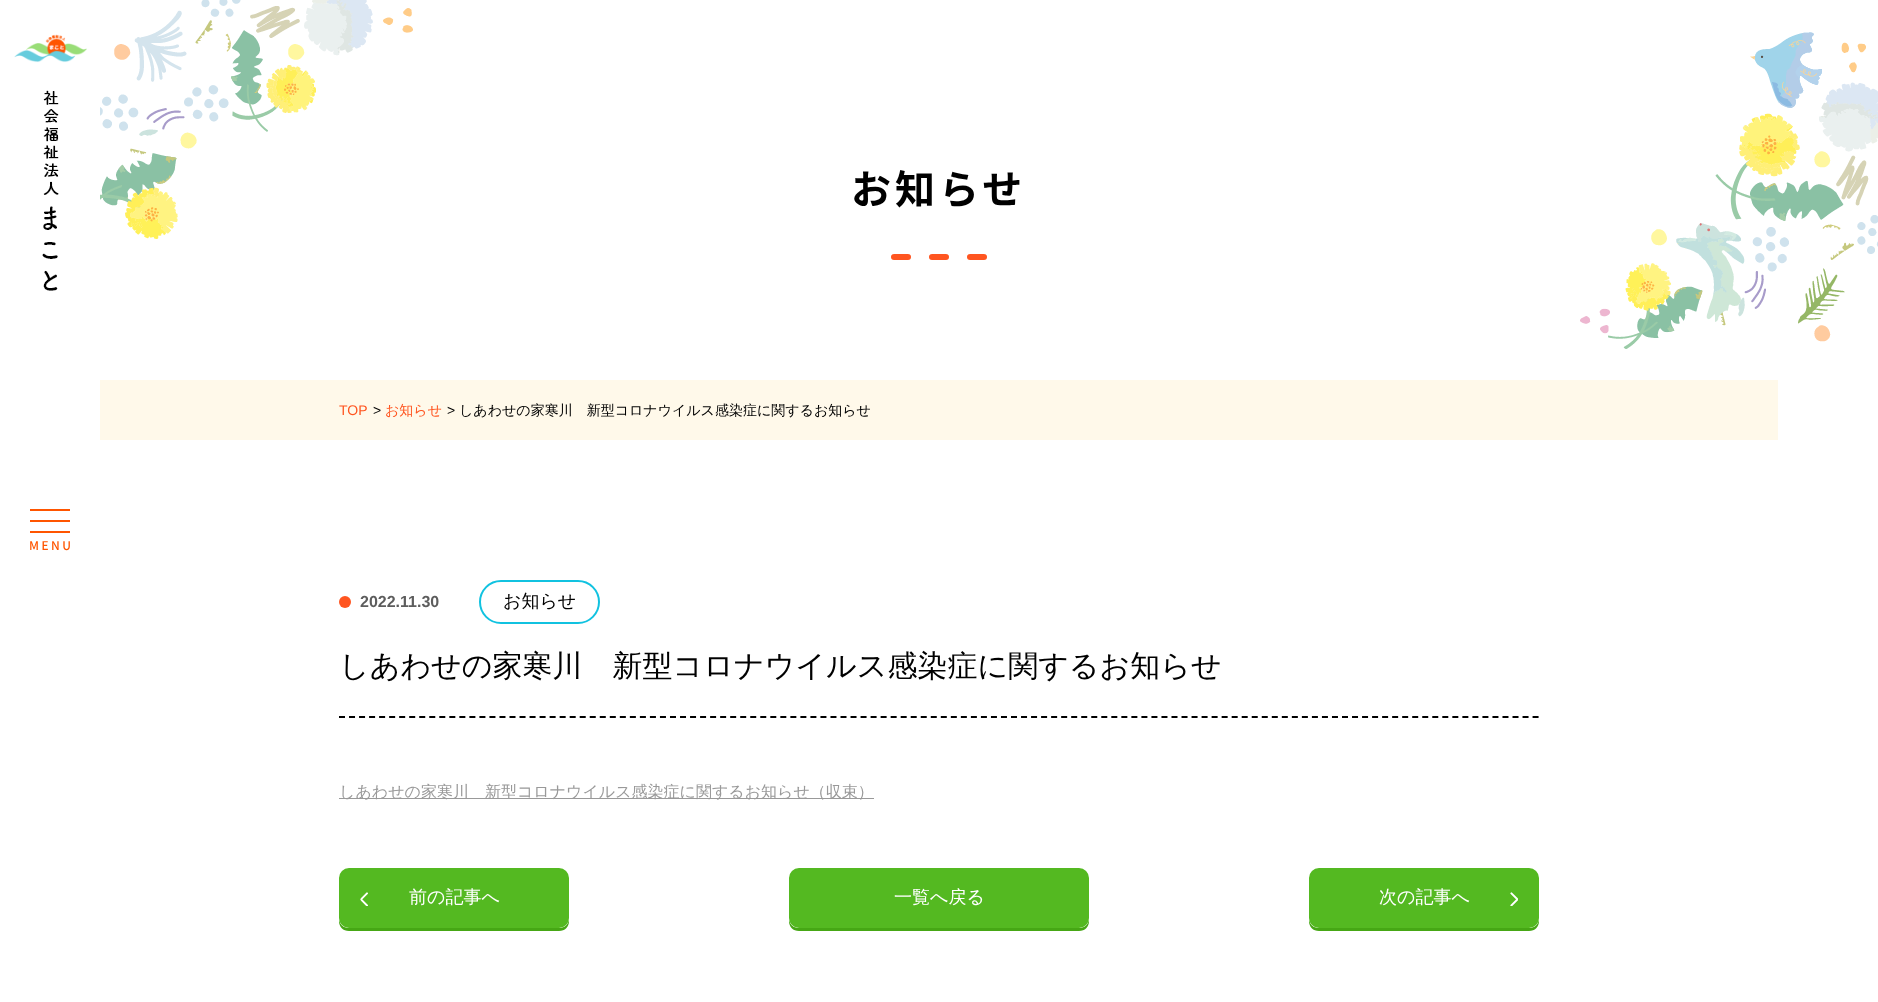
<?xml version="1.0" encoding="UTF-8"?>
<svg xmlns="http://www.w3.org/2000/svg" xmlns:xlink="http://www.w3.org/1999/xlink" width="1878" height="1002">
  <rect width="100%" height="100%" fill="#ffffff" />
  <image x="14" y="34" width="73" height="257" xlink:href="image1.png" />
  <image x="30" y="509" width="40" height="42" xlink:href="image2.png" />
  <image x="100" y="0" width="313" height="239" xlink:href="image3.png" />
  <rect x="967" y="254" width="20" height="6" rx="3" fill="#ff5520" />
  <rect x="891" y="254" width="20" height="6" rx="3" fill="#ff5520" />
  <rect x="929" y="254" width="20" height="6" rx="3" fill="#ff5520" />
  <image x="1580" y="32" width="298" height="317" xlink:href="image4.png" />
  <rect x="100" y="380" width="1678" height="60" fill="#fff9ea" />
  <circle cx="345" cy="602" r="6" fill="#ff5520" />
  <rect x="480" y="581" width="119" height="42" rx="21" fill="none" stroke="#11c2e0" stroke-width="2" />
  <path d="M 339 717 h 1200" fill="none" stroke="#000000" stroke-width="2" stroke-dasharray="6 4.03" />
  <rect x="339" y="798" width="535" height="1" fill="#999999" />
  <path d="M 339 918 v 3 c 0 6 4 10 10 10 h 210 c 6 0 10 -4 10 -10 v -3 c 0 6 -4 10 -10 10 h -210 c -6 0 -10 -4 -10 -10 z" fill="#46a715" />
  <rect x="340" y="869" width="228" height="58" rx="9" fill="#54b921" stroke="#54b921" stroke-width="2" />
  <image x="360" y="892" width="8" height="14" xlink:href="image5.png" />
  <path d="M 789 918 v 3 c 0 6 4 10 10 10 h 280 c 6 0 10 -4 10 -10 v -3 c 0 6 -4 10 -10 10 h -280 c -6 0 -10 -4 -10 -10 z" fill="#46a715" />
  <rect x="790" y="869" width="298" height="58" rx="9" fill="#54b921" stroke="#54b921" stroke-width="2" />
  <path d="M 1309 918 v 3 c 0 6 4 10 10 10 h 210 c 6 0 10 -4 10 -10 v -3 c 0 6 -4 10 -10 10 h -210 c -6 0 -10 -4 -10 -10 z" fill="#46a715" />
  <rect x="1310" y="869" width="228" height="58" rx="9" fill="#54b921" stroke="#54b921" stroke-width="2" />
  <image x="1510" y="892" width="8" height="14" xlink:href="image6.png" />
  <text x="851" y="204" style="font-family: Noto Sans JP; font-size: 40px; font-weight: bold; letter-spacing: 4px; fill: #000000">お知らせ</text>
  <text x="339" y="415" style="font-family: Liberation Sans; font-size: 14px; fill: #ff5520">TOP</text>
  <text x="373" y="415" style="font-family: Liberation Sans; font-size: 14px; fill: #000000">&gt;</text>
  <text x="385" y="415" style="font-family: WenQuanYi Zen Hei; font-size: 14px; font-weight: 500; fill: #ff5520">お知らせ</text>
  <text x="447" y="415" style="font-family: Liberation Sans; font-size: 14px; fill: #000000">&gt;</text>
  <text x="459" y="415" style="font-family: WenQuanYi Zen Hei; font-size: 14px; font-weight: 500; fill: #000000">しあわせの家寒川　新型コロナウイルス感染症に関するお知らせ</text>
  <text x="360" y="607" style="font-family: Liberation Sans; font-size: 16px; font-weight: bold; fill: #5d5d5d">2022.11.30</text>
  <text x="503" y="607" style="font-family: WenQuanYi Zen Hei; font-size: 18px; font-weight: 500; fill: #000000">お知らせ</text>
  <text x="339" y="676" style="font-family: WenQuanYi Zen Hei; font-size: 30px; font-weight: 500; fill: #000000">しあわせの家寒川　新型コロナウイルス感染症に関するお知らせ</text>
  <text x="339" y="797" style="font-family: WenQuanYi Zen Hei; font-size: 16px; font-weight: 500; fill: #999999">しあわせの家寒川　新型コロナウイルス感染症に関するお知らせ（収束）</text>
  <text x="409" y="903" style="font-family: WenQuanYi Zen Hei; font-size: 18px; font-weight: 500; fill: #ffffff">前の記事へ</text>
  <text x="894" y="903" style="font-family: WenQuanYi Zen Hei; font-size: 18px; font-weight: 500; fill: #ffffff">一覧へ戻る</text>
  <text x="1379" y="903" style="font-family: WenQuanYi Zen Hei; font-size: 18px; font-weight: 500; fill: #ffffff">次の記事へ</text>
</svg>
